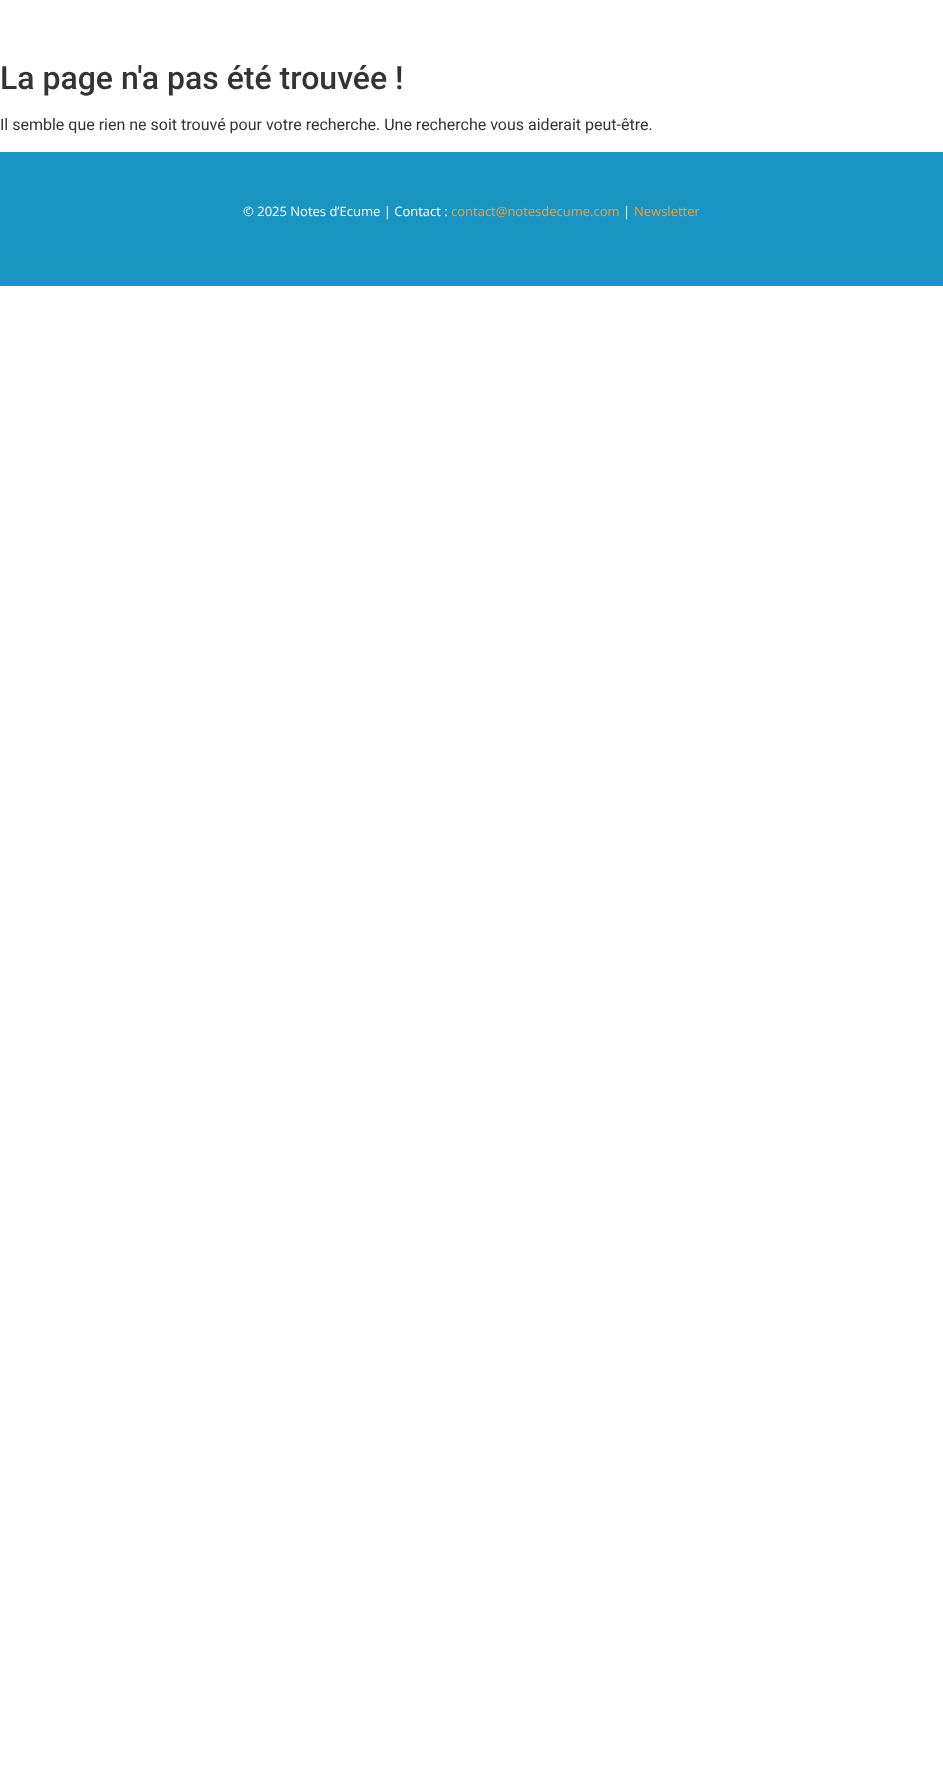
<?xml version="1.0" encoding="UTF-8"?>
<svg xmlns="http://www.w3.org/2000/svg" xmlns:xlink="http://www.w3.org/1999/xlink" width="943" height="1791">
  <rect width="100%" height="100%" fill="#ffffff" />
  <rect y="152" width="943" height="134" fill="#1994c3" />
  <text x="0" y="89" style="font-family: Roboto; font-size: 32px; font-weight: 500; fill: #333333">La page n'a pas été trouvée !</text>
  <text x="0" y="130" style="font-family: Roboto; font-size: 16px; fill: #333333">Il semble que rien ne soit trouvé pour votre recherche. Une recherche vous aiderait peut-être.</text>
  <text x="243" y="216" style="font-family: Open Sans; font-size: 13px; fill: #ffffff">© 2025 Notes d’Ecume | Contact :</text>
  <text x="451" y="216" style="font-family: Open Sans; font-size: 13px; fill: #f09e3b">contact@notesdecume.com</text>
  <text x="623" y="216" style="font-family: Open Sans; font-size: 13px; fill: #ffffff">|</text>
  <text x="634" y="216" style="font-family: Open Sans; font-size: 13px; fill: #f09e3b">Newsletter</text>
</svg>
